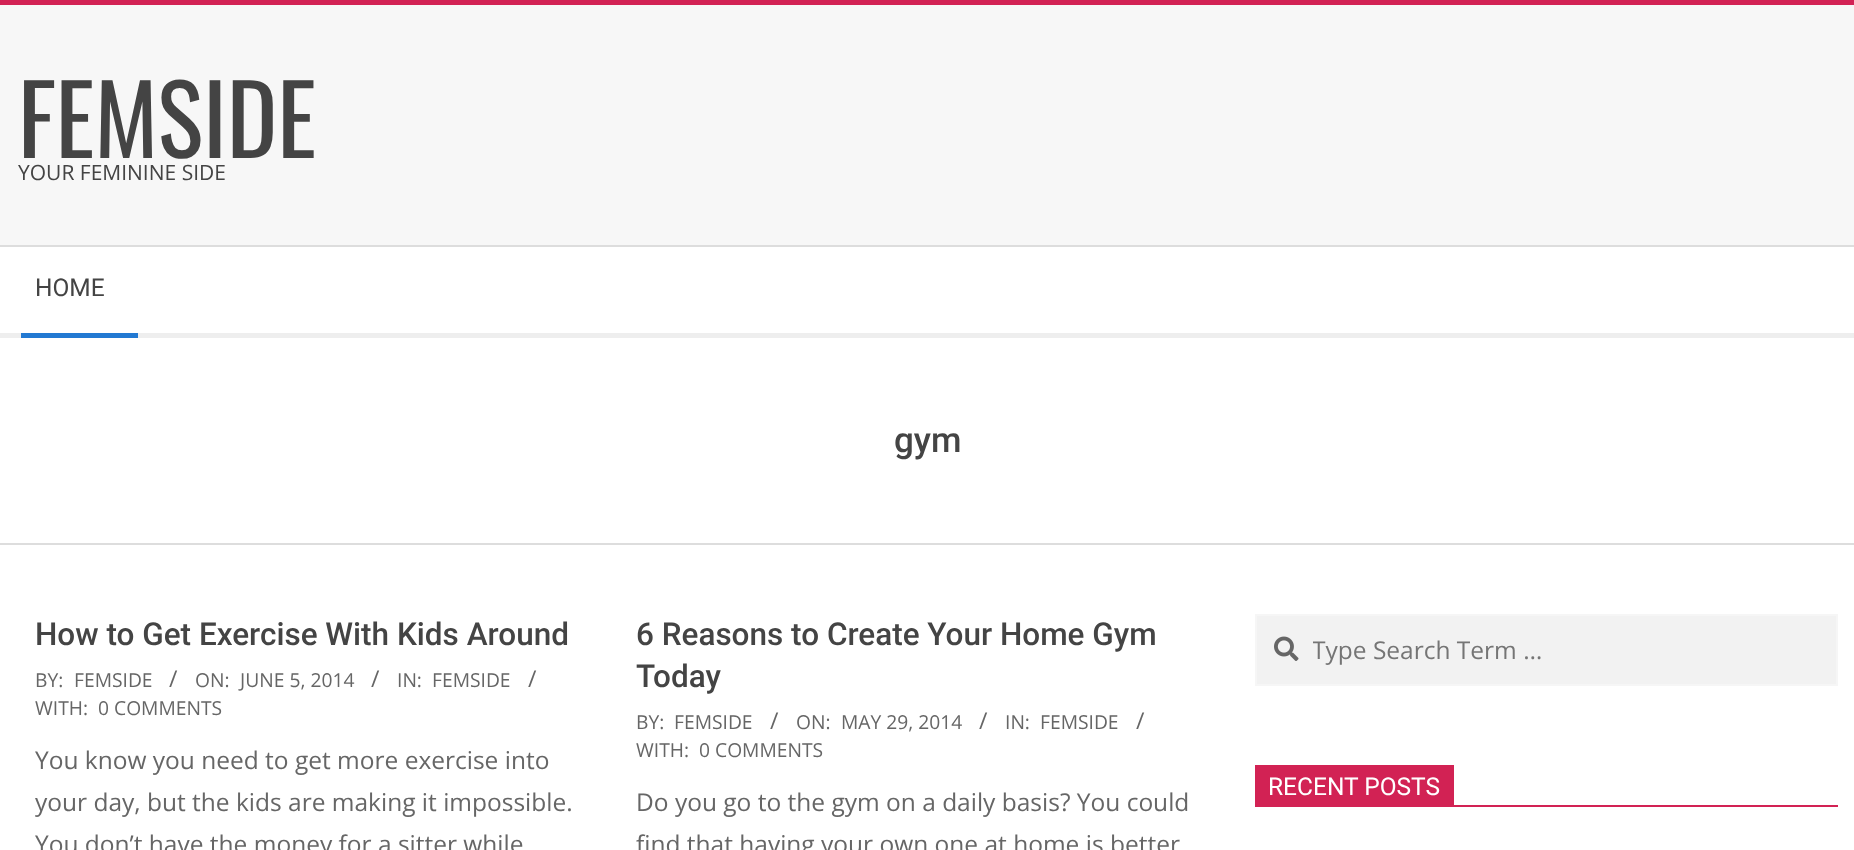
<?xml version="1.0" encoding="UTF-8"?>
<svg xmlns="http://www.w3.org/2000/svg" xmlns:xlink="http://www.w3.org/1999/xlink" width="1854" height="850">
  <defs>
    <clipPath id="clip1"><rect x="1313" y="634" width="493" height="33" /></clipPath>
  </defs>
  <rect width="100%" height="100%" fill="#f7f7f7" />
  <rect width="1854" height="5" fill="#d22254" />
  <rect y="245" width="1854" height="2" fill="#dddddd" />
  <rect y="247" width="1854" height="86" fill="#ffffff" />
  <rect y="333" width="1854" height="5" fill="#eeeeee" />
  <rect x="21" y="333" width="117" height="5" fill="#2279d2" />
  <rect y="338" width="1854" height="512" fill="#ffffff" />
  <rect y="543" width="1854" height="2" fill="#dddddd" />
  <rect x="1256" y="615" width="581" height="70" fill="#f2f2f2" stroke="#f6f6f6" stroke-width="2" />
  <image x="1274" y="636" width="25" height="25" xlink:href="image1.png" />
  <rect x="1255" y="765" width="199" height="40" fill="#d22254" />
  <rect x="1255" y="805" width="583" height="2" fill="#d22254" />
  <text x="18" y="158" style="font-family: Oswald; font-size: 96px; fill: #444444">FEMSIDE</text>
  <text x="18" y="180" style="font-family: Open Sans; font-size: 21px; fill: #444444">YOUR FEMININE SIDE</text>
  <text x="35" y="296" style="font-family: Roboto; font-size: 24.5px; fill: #444444">HOME</text>
  <text x="894" y="452" style="font-family: Roboto; font-size: 35px; font-weight: 500; fill: #444444">gym</text>
  <text x="35" y="645" style="font-family: Roboto; font-size: 31.5px; font-weight: 500; fill: #444444">How to Get Exercise With Kids Around</text>
  <text x="35" y="687" style="font-family: Open Sans; font-size: 19.25px; fill: #666666">BY:</text>
  <text x="74" y="687" style="font-family: Open Sans; font-size: 19.25px; fill: #666666">FEMSIDE</text>
  <text x="169" y="687" style="font-family: Open Sans; font-size: 23px; fill: #666666">/</text>
  <text x="195" y="687" style="font-family: Open Sans; font-size: 19.25px; fill: #666666">ON:</text>
  <text x="240" y="687" style="font-family: Open Sans; font-size: 19.25px; fill: #666666">JUNE 5, 2014</text>
  <text x="371" y="687" style="font-family: Open Sans; font-size: 23px; fill: #666666">/</text>
  <text x="397" y="687" style="font-family: Open Sans; font-size: 19.25px; fill: #666666">IN:</text>
  <text x="432" y="687" style="font-family: Open Sans; font-size: 19.25px; fill: #666666">FEMSIDE</text>
  <text x="528" y="687" style="font-family: Open Sans; font-size: 23px; fill: #666666">/</text>
  <text x="35" y="715" style="font-family: Open Sans; font-size: 19.25px; fill: #666666">WITH:</text>
  <text x="98" y="715" style="font-family: Open Sans; font-size: 19.25px; fill: #666666">0 COMMENTS</text>
  <text x="35" y="769" style="font-family: Open Sans; font-size: 24.5px; fill: #666666">You know you need to get more exercise into</text>
  <text x="35" y="811" style="font-family: Open Sans; font-size: 24.5px; fill: #666666">your day, but the kids are making it impossible.</text>
  <text x="35" y="853" style="font-family: Open Sans; font-size: 24.5px; fill: #666666">You don’t have the money for a sitter while</text>
  <text x="636" y="645" style="font-family: Roboto; font-size: 31.5px; font-weight: 500; fill: #444444">6 Reasons to Create Your Home Gym</text>
  <text x="636" y="687" style="font-family: Roboto; font-size: 31.5px; font-weight: 500; fill: #444444">Today</text>
  <text x="636" y="729" style="font-family: Open Sans; font-size: 19.25px; fill: #666666">BY:</text>
  <text x="674" y="729" style="font-family: Open Sans; font-size: 19.25px; fill: #666666">FEMSIDE</text>
  <text x="770" y="729" style="font-family: Open Sans; font-size: 23px; fill: #666666">/</text>
  <text x="796" y="729" style="font-family: Open Sans; font-size: 19.25px; fill: #666666">ON:</text>
  <text x="841" y="729" style="font-family: Open Sans; font-size: 19.25px; fill: #666666">MAY 29, 2014</text>
  <text x="979" y="729" style="font-family: Open Sans; font-size: 23px; fill: #666666">/</text>
  <text x="1005" y="729" style="font-family: Open Sans; font-size: 19.25px; fill: #666666">IN:</text>
  <text x="1040" y="729" style="font-family: Open Sans; font-size: 19.25px; fill: #666666">FEMSIDE</text>
  <text x="1136" y="729" style="font-family: Open Sans; font-size: 23px; fill: #666666">/</text>
  <text x="636" y="757" style="font-family: Open Sans; font-size: 19.25px; fill: #666666">WITH:</text>
  <text x="699" y="757" style="font-family: Open Sans; font-size: 19.25px; fill: #666666">0 COMMENTS</text>
  <text x="636" y="811" style="font-family: Open Sans; font-size: 24.5px; fill: #666666">Do you go to the gym on a daily basis? You could</text>
  <text x="636" y="853" style="font-family: Open Sans; font-size: 24.5px; fill: #666666">find that having your own one at home is better</text>
  <g clip-path="url(#clip1)">
    <text x="1312" y="659" style="font-family: Open Sans; font-size: 24.5px; fill: #757575">Type Search Term …</text>
  </g>
  <text x="1268" y="795" style="font-family: Roboto; font-size: 24.5px; fill: #ffffff">RECENT POSTS</text>
</svg>
